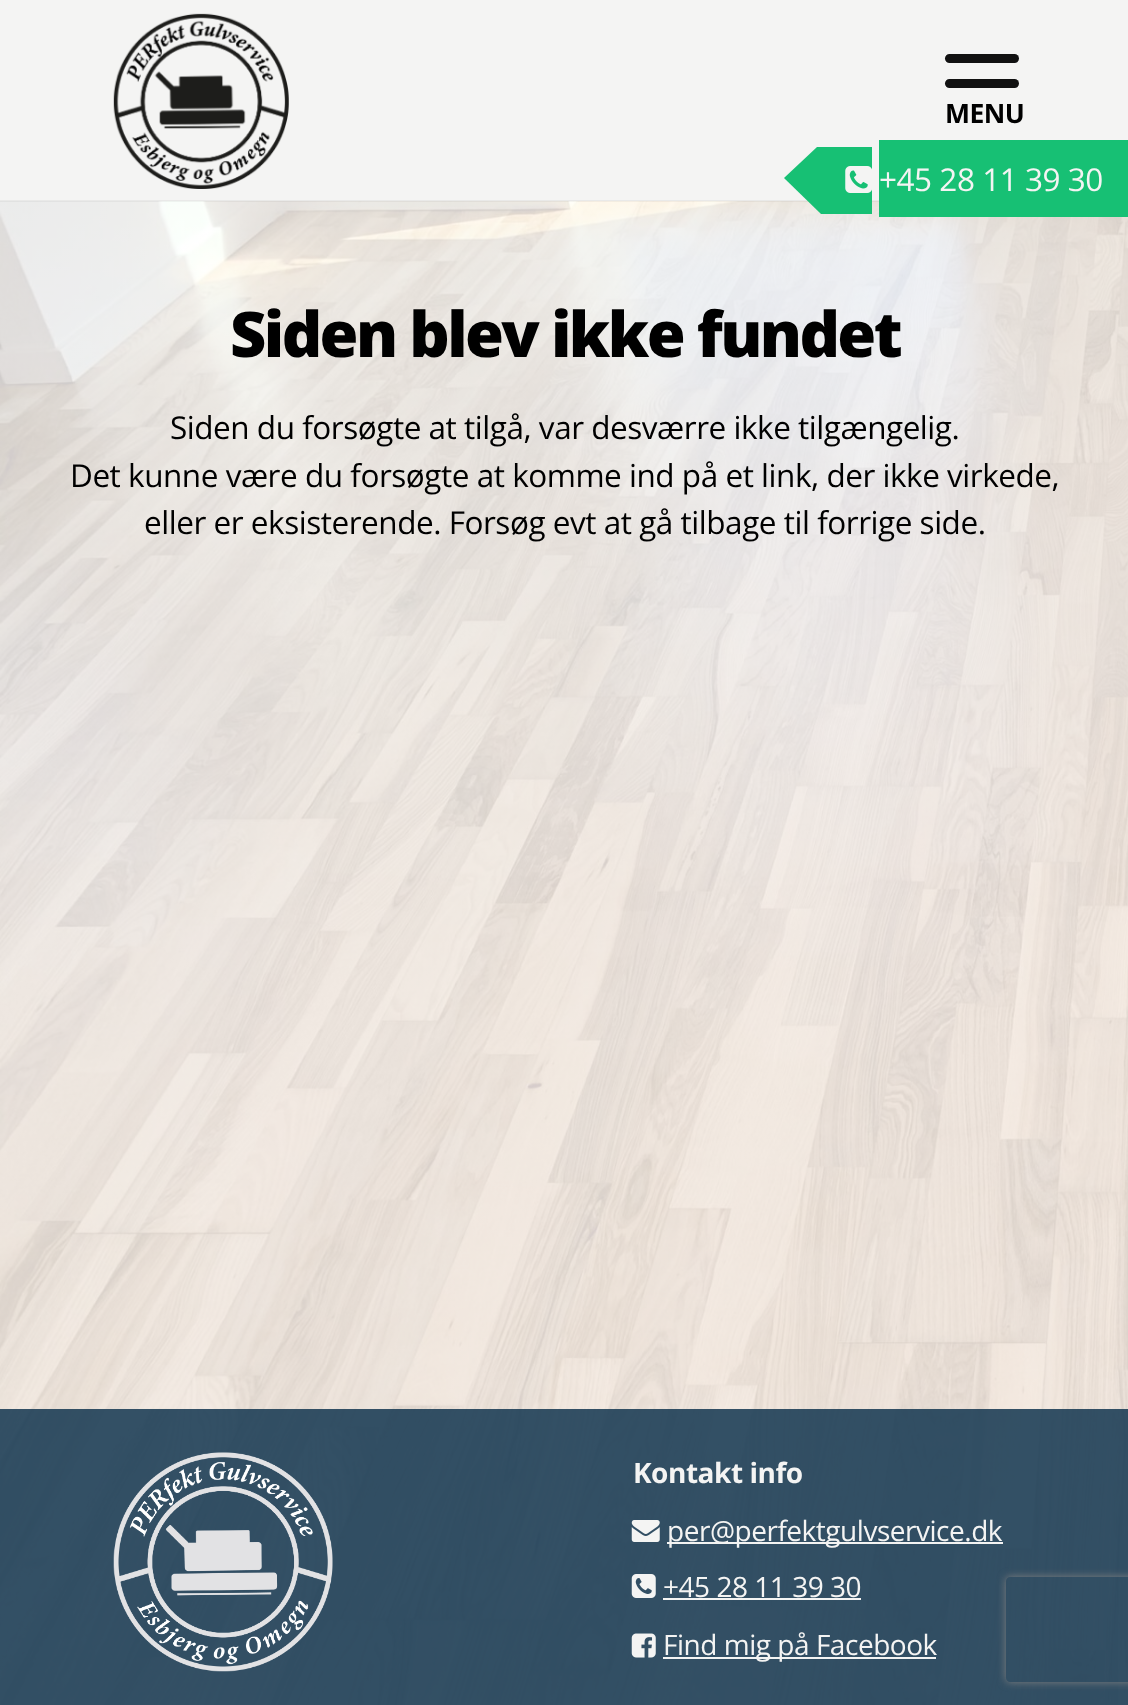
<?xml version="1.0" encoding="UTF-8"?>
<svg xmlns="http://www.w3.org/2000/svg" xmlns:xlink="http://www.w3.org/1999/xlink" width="1128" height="1705">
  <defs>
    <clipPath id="clip1"><path d="M 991 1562 h 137 v 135 h -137 z m 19 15 h 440 c 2 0 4 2 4 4 v 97 c 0 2 -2 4 -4 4 h -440 c -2 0 -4 -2 -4 -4 v -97 c 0 -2 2 -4 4 -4 z" clip-rule="evenodd" /></clipPath>
  </defs>
  <rect width="100%" height="100%" fill="#ffffff" />
  <image x="0" y="201" width="1128" height="1504" xlink:href="image1.png" />
  <rect width="1128" height="201" fill="#f4f4f3" />
  <rect y="200" width="879" height="2" fill="#424242" fill-opacity="0.06" />
  <image x="113" y="13" width="176" height="176" xlink:href="image2.png" />
  <rect x="945" y="54" width="74" height="9" rx="4.5" fill="#111111" />
  <rect x="945" y="79" width="74" height="9" rx="4.5" fill="#111111" />
  <path d="M 821 214 l -37 -36 l 33 -31 h 55 v 67 z" fill="#17c074" />
  <rect x="879" y="140" width="249" height="77" fill="#17c074" />
  <image x="845" y="166" width="27" height="27" xlink:href="image3.png" />
  <rect y="1409" width="1128" height="296" fill="#183a53" fill-opacity="0.88" />
  <image x="113" y="1452" width="220" height="220" xlink:href="image4.png" />
  <image x="631" y="1520" width="29" height="22" xlink:href="image5.png" />
  <rect x="667" y="1542" width="336" height="2" fill="#f4f4f3" />
  <image x="631" y="1574" width="25" height="24" xlink:href="image6.png" />
  <rect x="663" y="1598" width="198" height="2" fill="#f4f4f3" />
  <image x="631" y="1633" width="25" height="25" xlink:href="image7.png" />
  <rect x="663" y="1657" width="273" height="2" fill="#f4f4f3" />
  <g clip-path="url(#clip1)">
    <rect x="1006" y="1577" width="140" height="105" rx="4" fill="#808080" filter="blur(4.5px)" />
  </g>
  <text x="945" y="123" style="font-family: Open Sans; font-size: 26.5px; font-weight: bold; letter-spacing: -0.5px; fill: #000000">MENU</text>
  <text x="879" y="191" style="font-family: Open Sans; font-size: 31.5px; letter-spacing: -0.47px; fill: #f4f4f3">+45 28 11 39 30</text>
  <text x="230" y="357" style="font-family: Open Sans; font-size: 63px; font-weight: 800; letter-spacing: -2.6px; fill: #000000">Siden blev ikke fundet</text>
  <text x="170" y="439" style="font-family: Open Sans; font-size: 31.5px; letter-spacing: -0.47px; fill: #000000">Siden du forsøgte at tilgå, var desværre ikke tilgængelig.</text>
  <text x="70" y="487" style="font-family: Open Sans; font-size: 31.5px; letter-spacing: -0.47px; fill: #000000">Det kunne være du forsøgte at komme ind på et link, der ikke virkede,</text>
  <text x="144" y="534" style="font-family: Open Sans; font-size: 31.5px; letter-spacing: -0.47px; fill: #000000">eller er eksisterende. Forsøg evt at gå tilbage til forrige side.</text>
  <text x="633" y="1483" style="font-family: Open Sans; font-size: 28px; font-weight: bold; letter-spacing: -0.47px; fill: #f4f4f3">Kontakt info</text>
  <text x="667" y="1541" style="font-family: Open Sans; font-size: 28px; letter-spacing: -0.47px; fill: #f4f4f3">per@perfektgulvservice.dk</text>
  <text x="663" y="1597" style="font-family: Open Sans; font-size: 28px; letter-spacing: -0.47px; fill: #f4f4f3">+45 28 11 39 30</text>
  <text x="663" y="1655" style="font-family: Open Sans; font-size: 28px; letter-spacing: -0.47px; fill: #f4f4f3">Find mig på Facebook</text>
</svg>
